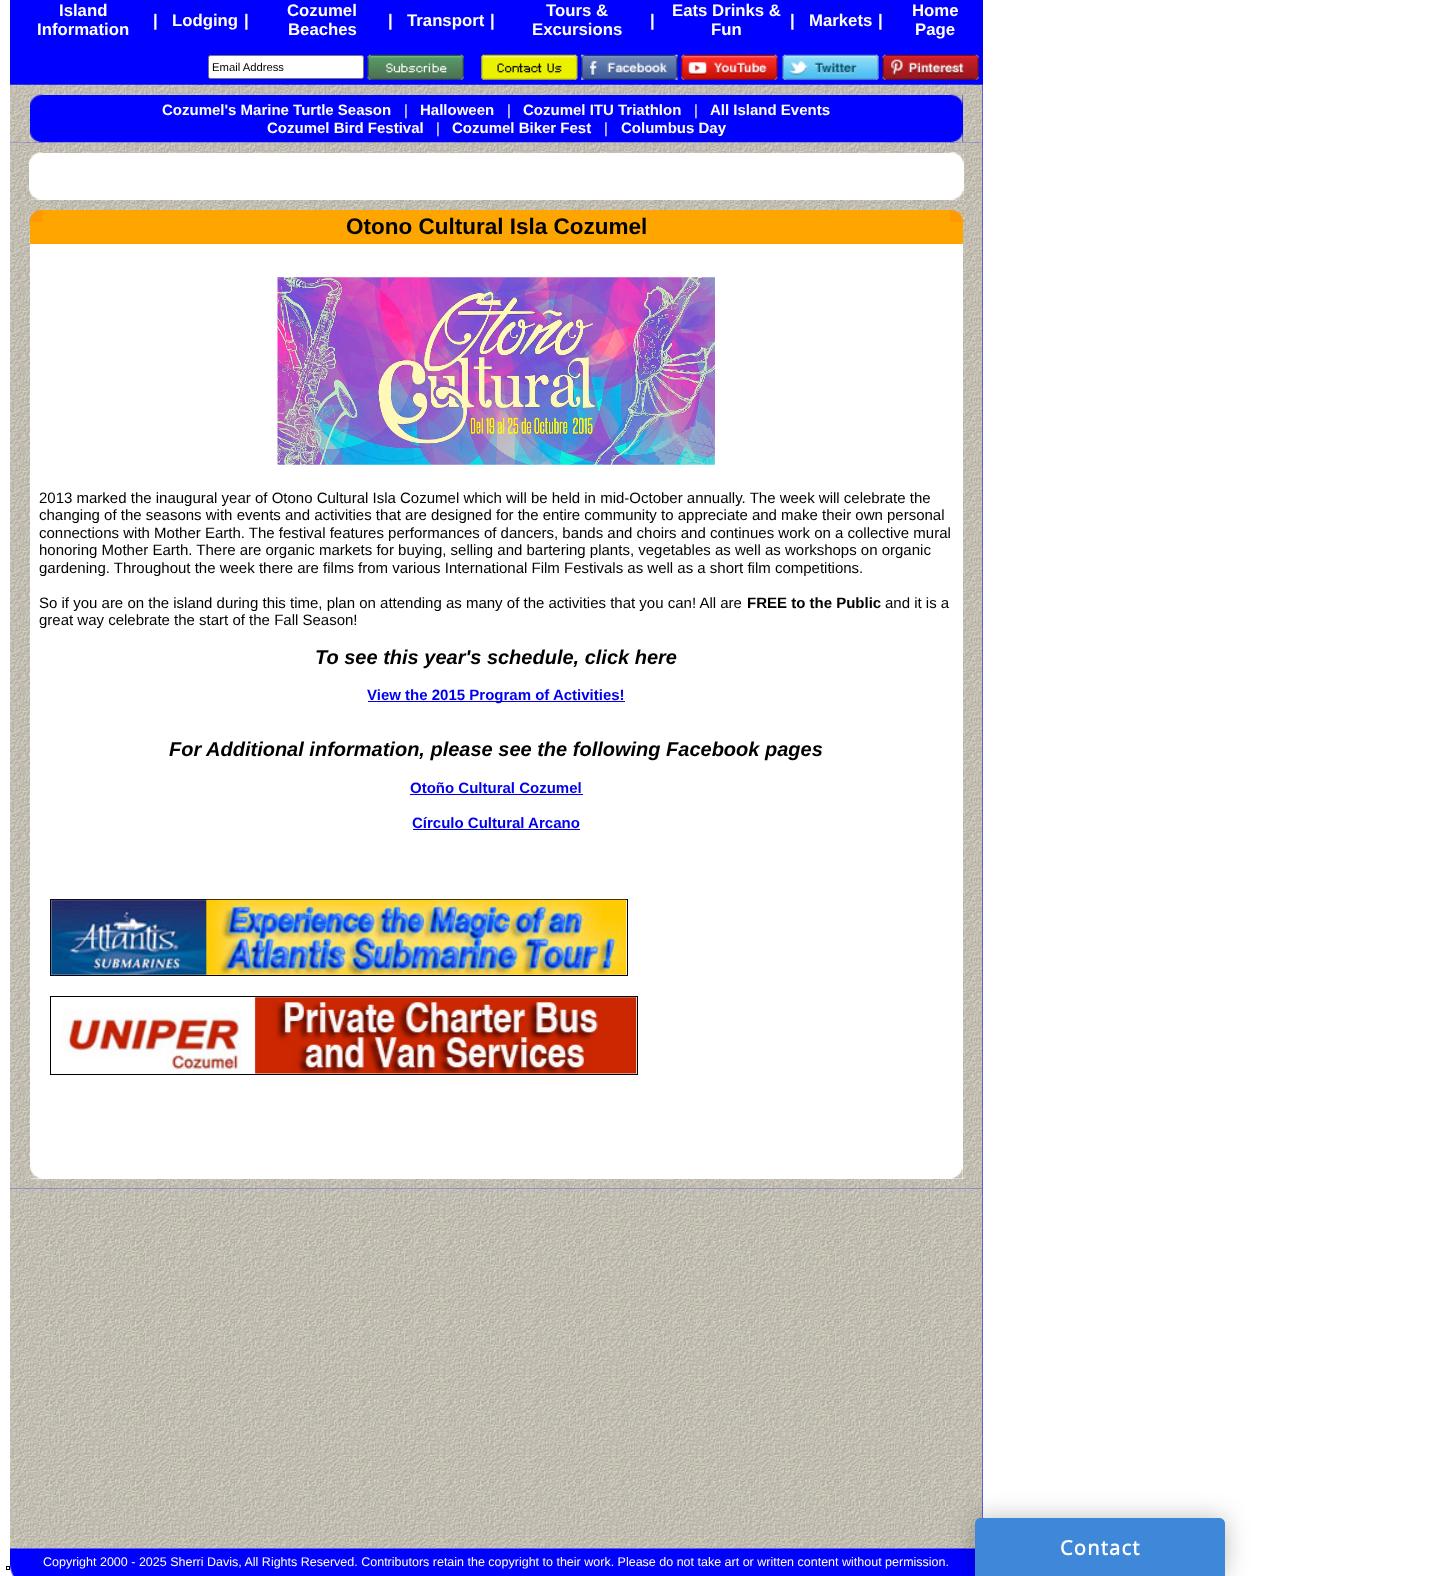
<?xml version="1.0" encoding="UTF-8"?>
<svg xmlns="http://www.w3.org/2000/svg" xmlns:xlink="http://www.w3.org/1999/xlink" width="1437" height="1576">
  <rect width="100%" height="100%" fill="#ffffff" />
  <rect x="10" width="973" height="1576" fill="#0000ff" />
  <rect x="208.5" y="55.5" width="155" height="23" rx="2" fill="#ffffff" stroke="#767676" />
  <image x="367" y="54" width="97" height="26" xlink:href="image1.png" />
  <image x="481" y="54" width="97" height="26" xlink:href="image2.png" />
  <image x="581" y="54" width="97" height="26" xlink:href="image3.png" />
  <image x="681" y="54" width="97" height="26" xlink:href="image4.png" />
  <image x="782" y="54" width="97" height="26" xlink:href="image5.png" />
  <image x="882" y="54" width="97" height="26" xlink:href="image6.png" />
  <image x="10" y="84" width="973" height="59" xlink:href="image7.png" />
  <rect x="30" y="95" width="933" height="48" fill="#0000ff" />
  <image x="30" y="94" width="13" height="11" xlink:href="image8.png" />
  <image x="950" y="94" width="13" height="11" xlink:href="image9.png" />
  <image x="10" y="142" width="973" height="1047" xlink:href="image12.png" />
  <image x="30" y="132" width="13" height="11" xlink:href="image10.png" />
  <image x="950" y="132" width="13" height="11" xlink:href="image11.png" />
  <rect x="29" y="153" width="935" height="47" fill="#ffffff" />
  <image x="28" y="152" width="14" height="13" xlink:href="image13.png" />
  <image x="951" y="152" width="13" height="12" xlink:href="image14.png" />
  <image x="28" y="187" width="12" height="13" xlink:href="image15.png" />
  <image x="952" y="189" width="12" height="11" xlink:href="image16.png" />
  <rect x="30" y="244" width="933" height="935" fill="#ffffff" />
  <rect x="30" y="210" width="933" height="34" fill="#ffa500" />
  <image x="30" y="209" width="13" height="13" xlink:href="image17.png" />
  <image x="950" y="209" width="13" height="13" xlink:href="image18.png" />
  <image x="277" y="277" width="438" height="188" xlink:href="image19.png" />
  <rect x="368" y="701" width="257" height="1" fill="#0000ee" />
  <rect x="410" y="794" width="173" height="1" fill="#0000ee" />
  <rect x="413" y="829" width="167" height="1" fill="#0000ee" />
  <rect x="50.5" y="899.5" width="577" height="76" fill="none" stroke="#000000" />
  <image x="51" y="899" width="576" height="76" xlink:href="image20.png" />
  <rect x="50.5" y="996.5" width="587" height="78" fill="none" stroke="#000000" />
  <image x="61" y="997" width="576" height="77" xlink:href="image21.png" />
  <image x="30" y="1167" width="11" height="12" xlink:href="image22.png" />
  <image x="951" y="1168" width="12" height="11" xlink:href="image23.png" />
  <image x="10" y="1188" width="973" height="361" xlink:href="image24.png" />
  <image x="10" y="1564" width="4" height="12" xlink:href="image25.png" />
  <rect x="975" y="1518" width="250" height="58" rx="6" fill="#000000" fill-opacity="0.25" filter="blur(12.5px)" />
  <path d="M 981 1518 h 238 c 3.5 0 6 2.5 6 6 v 52 h -250 v -52 c 0 -3.5 2.5 -6 6 -6 z" fill="#3e87d9" />
  <rect x="6.5" y="1566.5" width="3" height="3" fill="none" stroke="#000000" />
  <text x="59" y="16" style="font-family: Liberation Sans; font-size: 16.75px; font-weight: bold; fill: #ffffff">Island</text>
  <text x="37" y="35" style="font-family: Liberation Sans; font-size: 16.75px; font-weight: bold; fill: #ffffff">Information</text>
  <text x="153" y="26" style="font-family: Liberation Sans; font-size: 16.75px; font-weight: bold; fill: #ffffff">|</text>
  <text x="172" y="26" style="font-family: Liberation Sans; font-size: 16.75px; font-weight: bold; fill: #ffffff">Lodging</text>
  <text x="244" y="26" style="font-family: Liberation Sans; font-size: 16.75px; font-weight: bold; fill: #ffffff">|</text>
  <text x="287" y="16" style="font-family: Liberation Sans; font-size: 16.75px; font-weight: bold; fill: #ffffff">Cozumel</text>
  <text x="288" y="35" style="font-family: Liberation Sans; font-size: 16.75px; font-weight: bold; fill: #ffffff">Beaches</text>
  <text x="388" y="26" style="font-family: Liberation Sans; font-size: 16.75px; font-weight: bold; fill: #ffffff">|</text>
  <text x="407" y="26" style="font-family: Liberation Sans; font-size: 16.75px; font-weight: bold; fill: #ffffff">Transport</text>
  <text x="490" y="26" style="font-family: Liberation Sans; font-size: 16.75px; font-weight: bold; fill: #ffffff">|</text>
  <text x="546" y="16" style="font-family: Liberation Sans; font-size: 16.75px; font-weight: bold; fill: #ffffff">Tours &amp;</text>
  <text x="532" y="35" style="font-family: Liberation Sans; font-size: 16.75px; font-weight: bold; fill: #ffffff">Excursions</text>
  <text x="650" y="26" style="font-family: Liberation Sans; font-size: 16.75px; font-weight: bold; fill: #ffffff">|</text>
  <text x="672" y="16" style="font-family: Liberation Sans; font-size: 16.75px; font-weight: bold; fill: #ffffff">Eats Drinks &amp;</text>
  <text x="711" y="35" style="font-family: Liberation Sans; font-size: 16.75px; font-weight: bold; fill: #ffffff">Fun</text>
  <text x="790" y="26" style="font-family: Liberation Sans; font-size: 16.75px; font-weight: bold; fill: #ffffff">|</text>
  <text x="809" y="26" style="font-family: Liberation Sans; font-size: 16.75px; font-weight: bold; fill: #ffffff">Markets</text>
  <text x="878" y="26" style="font-family: Liberation Sans; font-size: 16.75px; font-weight: bold; fill: #ffffff">|</text>
  <text x="912" y="16" style="font-family: Liberation Sans; font-size: 16.75px; font-weight: bold; fill: #ffffff">Home</text>
  <text x="915" y="35" style="font-family: Liberation Sans; font-size: 16.75px; font-weight: bold; fill: #ffffff">Page</text>
  <text x="212" y="71" style="font-family: Liberation Sans; font-size: 11.25px; fill: #000000">Email Address</text>
  <text x="162" y="115" style="font-family: Liberation Sans; font-size: 15px; font-weight: bold; fill: #ffffff">Cozumel's Marine Turtle Season</text>
  <text x="404" y="115" style="font-family: Liberation Sans; font-size: 15px; fill: #ffffff">|</text>
  <text x="420" y="115" style="font-family: Liberation Sans; font-size: 15px; font-weight: bold; fill: #ffffff">Halloween</text>
  <text x="507" y="115" style="font-family: Liberation Sans; font-size: 15px; fill: #ffffff">|</text>
  <text x="523" y="115" style="font-family: Liberation Sans; font-size: 15px; font-weight: bold; fill: #ffffff">Cozumel ITU Triathlon</text>
  <text x="694" y="115" style="font-family: Liberation Sans; font-size: 15px; fill: #ffffff">|</text>
  <text x="710" y="115" style="font-family: Liberation Sans; font-size: 15px; font-weight: bold; fill: #ffffff">All Island Events</text>
  <text x="267" y="133" style="font-family: Liberation Sans; font-size: 15px; font-weight: bold; fill: #ffffff">Cozumel Bird Festival</text>
  <text x="436" y="133" style="font-family: Liberation Sans; font-size: 15px; fill: #ffffff">|</text>
  <text x="452" y="133" style="font-family: Liberation Sans; font-size: 15px; font-weight: bold; fill: #ffffff">Cozumel Biker Fest</text>
  <text x="604" y="133" style="font-family: Liberation Sans; font-size: 15px; fill: #ffffff">|</text>
  <text x="621" y="133" style="font-family: Liberation Sans; font-size: 15px; font-weight: bold; fill: #ffffff">Columbus Day</text>
  <text x="346" y="234" style="font-family: Liberation Sans; font-size: 22.5px; font-weight: bold; fill: #000000">Otono Cultural Isla Cozumel</text>
  <text x="39" y="503" style="font-family: Liberation Sans; font-size: 15px; fill: #000000">2013 marked the inaugural year of Otono Cultural Isla Cozumel which will be held in mid-October annually. The week will celebrate the</text>
  <text x="39" y="520" style="font-family: Liberation Sans; font-size: 15px; fill: #000000">changing of the seasons with events and activities that are designed for the entire community to appreciate and make their own personal</text>
  <text x="39" y="538" style="font-family: Liberation Sans; font-size: 15px; fill: #000000">connections with Mother Earth. The festival features performances of dancers, bands and choirs and continues work on a collective mural</text>
  <text x="39" y="555" style="font-family: Liberation Sans; font-size: 15px; fill: #000000">honoring Mother Earth. There are organic markets for buying, selling and bartering plants, vegetables as well as workshops on organic</text>
  <text x="39" y="573" style="font-family: Liberation Sans; font-size: 15px; fill: #000000">gardening. Throughout the week there are films from various International Film Festivals as well as a short film competitions.</text>
  <text x="39" y="608" style="font-family: Liberation Sans; font-size: 15px; fill: #000000">So if you are on the island during this time, plan on attending as many of the activities that you can! All are</text>
  <text x="747" y="608" style="font-family: Liberation Sans; font-size: 15px; font-weight: bold; fill: #000000">FREE to the Public</text>
  <text x="885" y="608" style="font-family: Liberation Sans; font-size: 15px; fill: #000000">and it is a</text>
  <text x="39" y="625" style="font-family: Liberation Sans; font-size: 15px; fill: #000000">great way celebrate the start of the Fall Season!</text>
  <text x="315" y="664" style="font-family: Liberation Sans; font-size: 20px; font-weight: bold; font-style: italic; fill: #000000">To see this year's schedule, click here</text>
  <text x="367" y="700" style="font-family: Liberation Sans; font-size: 15px; font-weight: bold; fill: #0000ee">View the 2015 Program of Activities!</text>
  <text x="169" y="756" style="font-family: Liberation Sans; font-size: 20px; font-weight: bold; font-style: italic; fill: #000000">For Additional information, please see the following Facebook pages</text>
  <text x="410" y="793" style="font-family: Liberation Sans; font-size: 15px; font-weight: bold; fill: #0000ee">Otoño Cultural Cozumel</text>
  <text x="412" y="828" style="font-family: Liberation Sans; font-size: 15px; font-weight: bold; fill: #0000ee">Círculo Cultural Arcano</text>
  <text x="43" y="1566" style="font-family: Liberation Sans; font-size: 12.5px; fill: #ffffff">Copyright 2000 - 2025 Sherri Davis, All Rights Reserved. Contributors retain the copyright to their work. Please do not take art or written content without permission.</text>
  <text x="1060" y="1555" style="font-family: Open Sans; font-size: 20px; font-weight: bold; letter-spacing: 1.25px; fill: #ffffff">Contact</text>
</svg>
